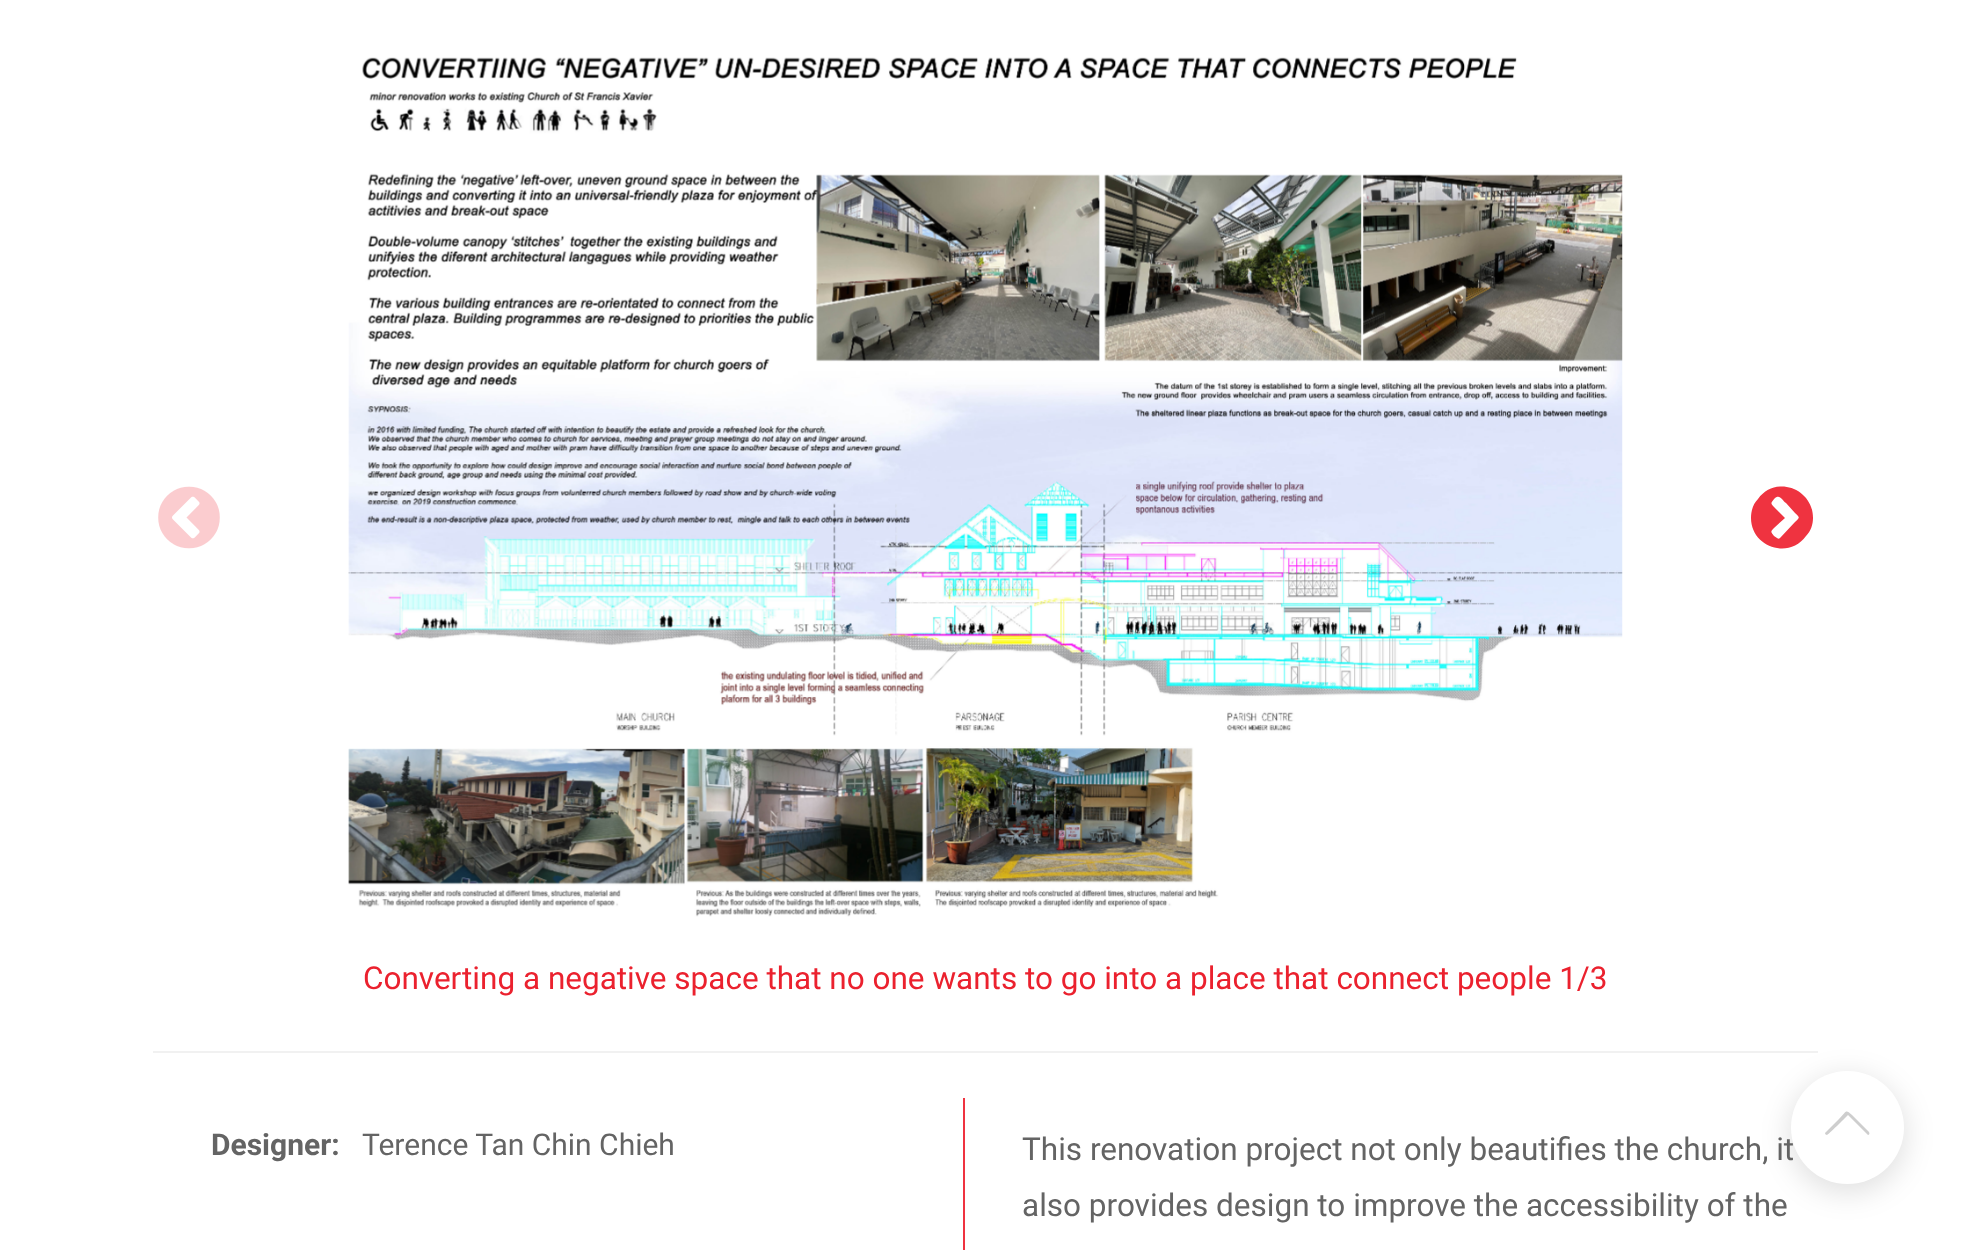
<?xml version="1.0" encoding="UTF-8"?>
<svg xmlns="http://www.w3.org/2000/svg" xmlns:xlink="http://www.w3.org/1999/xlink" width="1970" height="1250">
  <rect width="100%" height="100%" fill="#ffffff" />
  <image x="158" y="486" width="62" height="63" xlink:href="image1.png" />
  <path d="M 1780 538 c -2 2 -4 -1 -6 -2 c -3 -4 -4 -4 0 -8 l 11 -10 l -11 -11 c -4 -4 -3 -4 1 -9 c 5 -4 7 2 11 5 l 9 10 c 5 5 5 4 0 9 z m 33 -20 c 0 -30 -38 -43 -55 -19 c -5 5 -7 12 -7 19 c 0 29 38 42 55 18 c 5 -5 7 -12 7 -18 z" fill="#ef3340" />
  <image x="348" y="57" width="1275" height="860" xlink:href="image2.png" />
  <rect x="153" y="1051" width="1665" height="2" fill="#f1f1f1" />
  <rect x="963" y="1098" width="2" height="152" fill="#ef3340" />
  <rect x="1789" y="1076" width="117" height="117" rx="58.5" fill="#000000" fill-opacity="0.12" filter="blur(14.5px)" />
  <text x="363" y="989" style="font-family: Roboto; font-size: 31.5px; fill: #eb212e">Converting a negative space that no one wants to go into a place that connect people 1/3</text>
  <text x="211" y="1155" style="font-family: Roboto; font-size: 30px; font-weight: bold; fill: #646464">Designer:</text>
  <text x="362" y="1155" style="font-family: Roboto; font-size: 30px; fill: #646464">Terence Tan Chin Chieh</text>
  <text x="1022" y="1160" style="font-family: Roboto; font-size: 31.5px; fill: #646464">This renovation project not only beautifies the church, it</text>
  <text x="1022" y="1216" style="font-family: Roboto; font-size: 31.5px; fill: #646464">also provides design to improve the accessibility of the</text>
  <circle cx="1847.5" cy="1127.5" r="56.5" fill="#ffffff" />
  <path d="M 1825 1133 c 0 1 1 2 2 2 c 1 0 18 -17 21 -20 l 20 20 c 1 0 2 -1 1 -3 l -17 -17 c -7 -6 -5 -4 -13 4 z" fill="#cecece" />
</svg>
